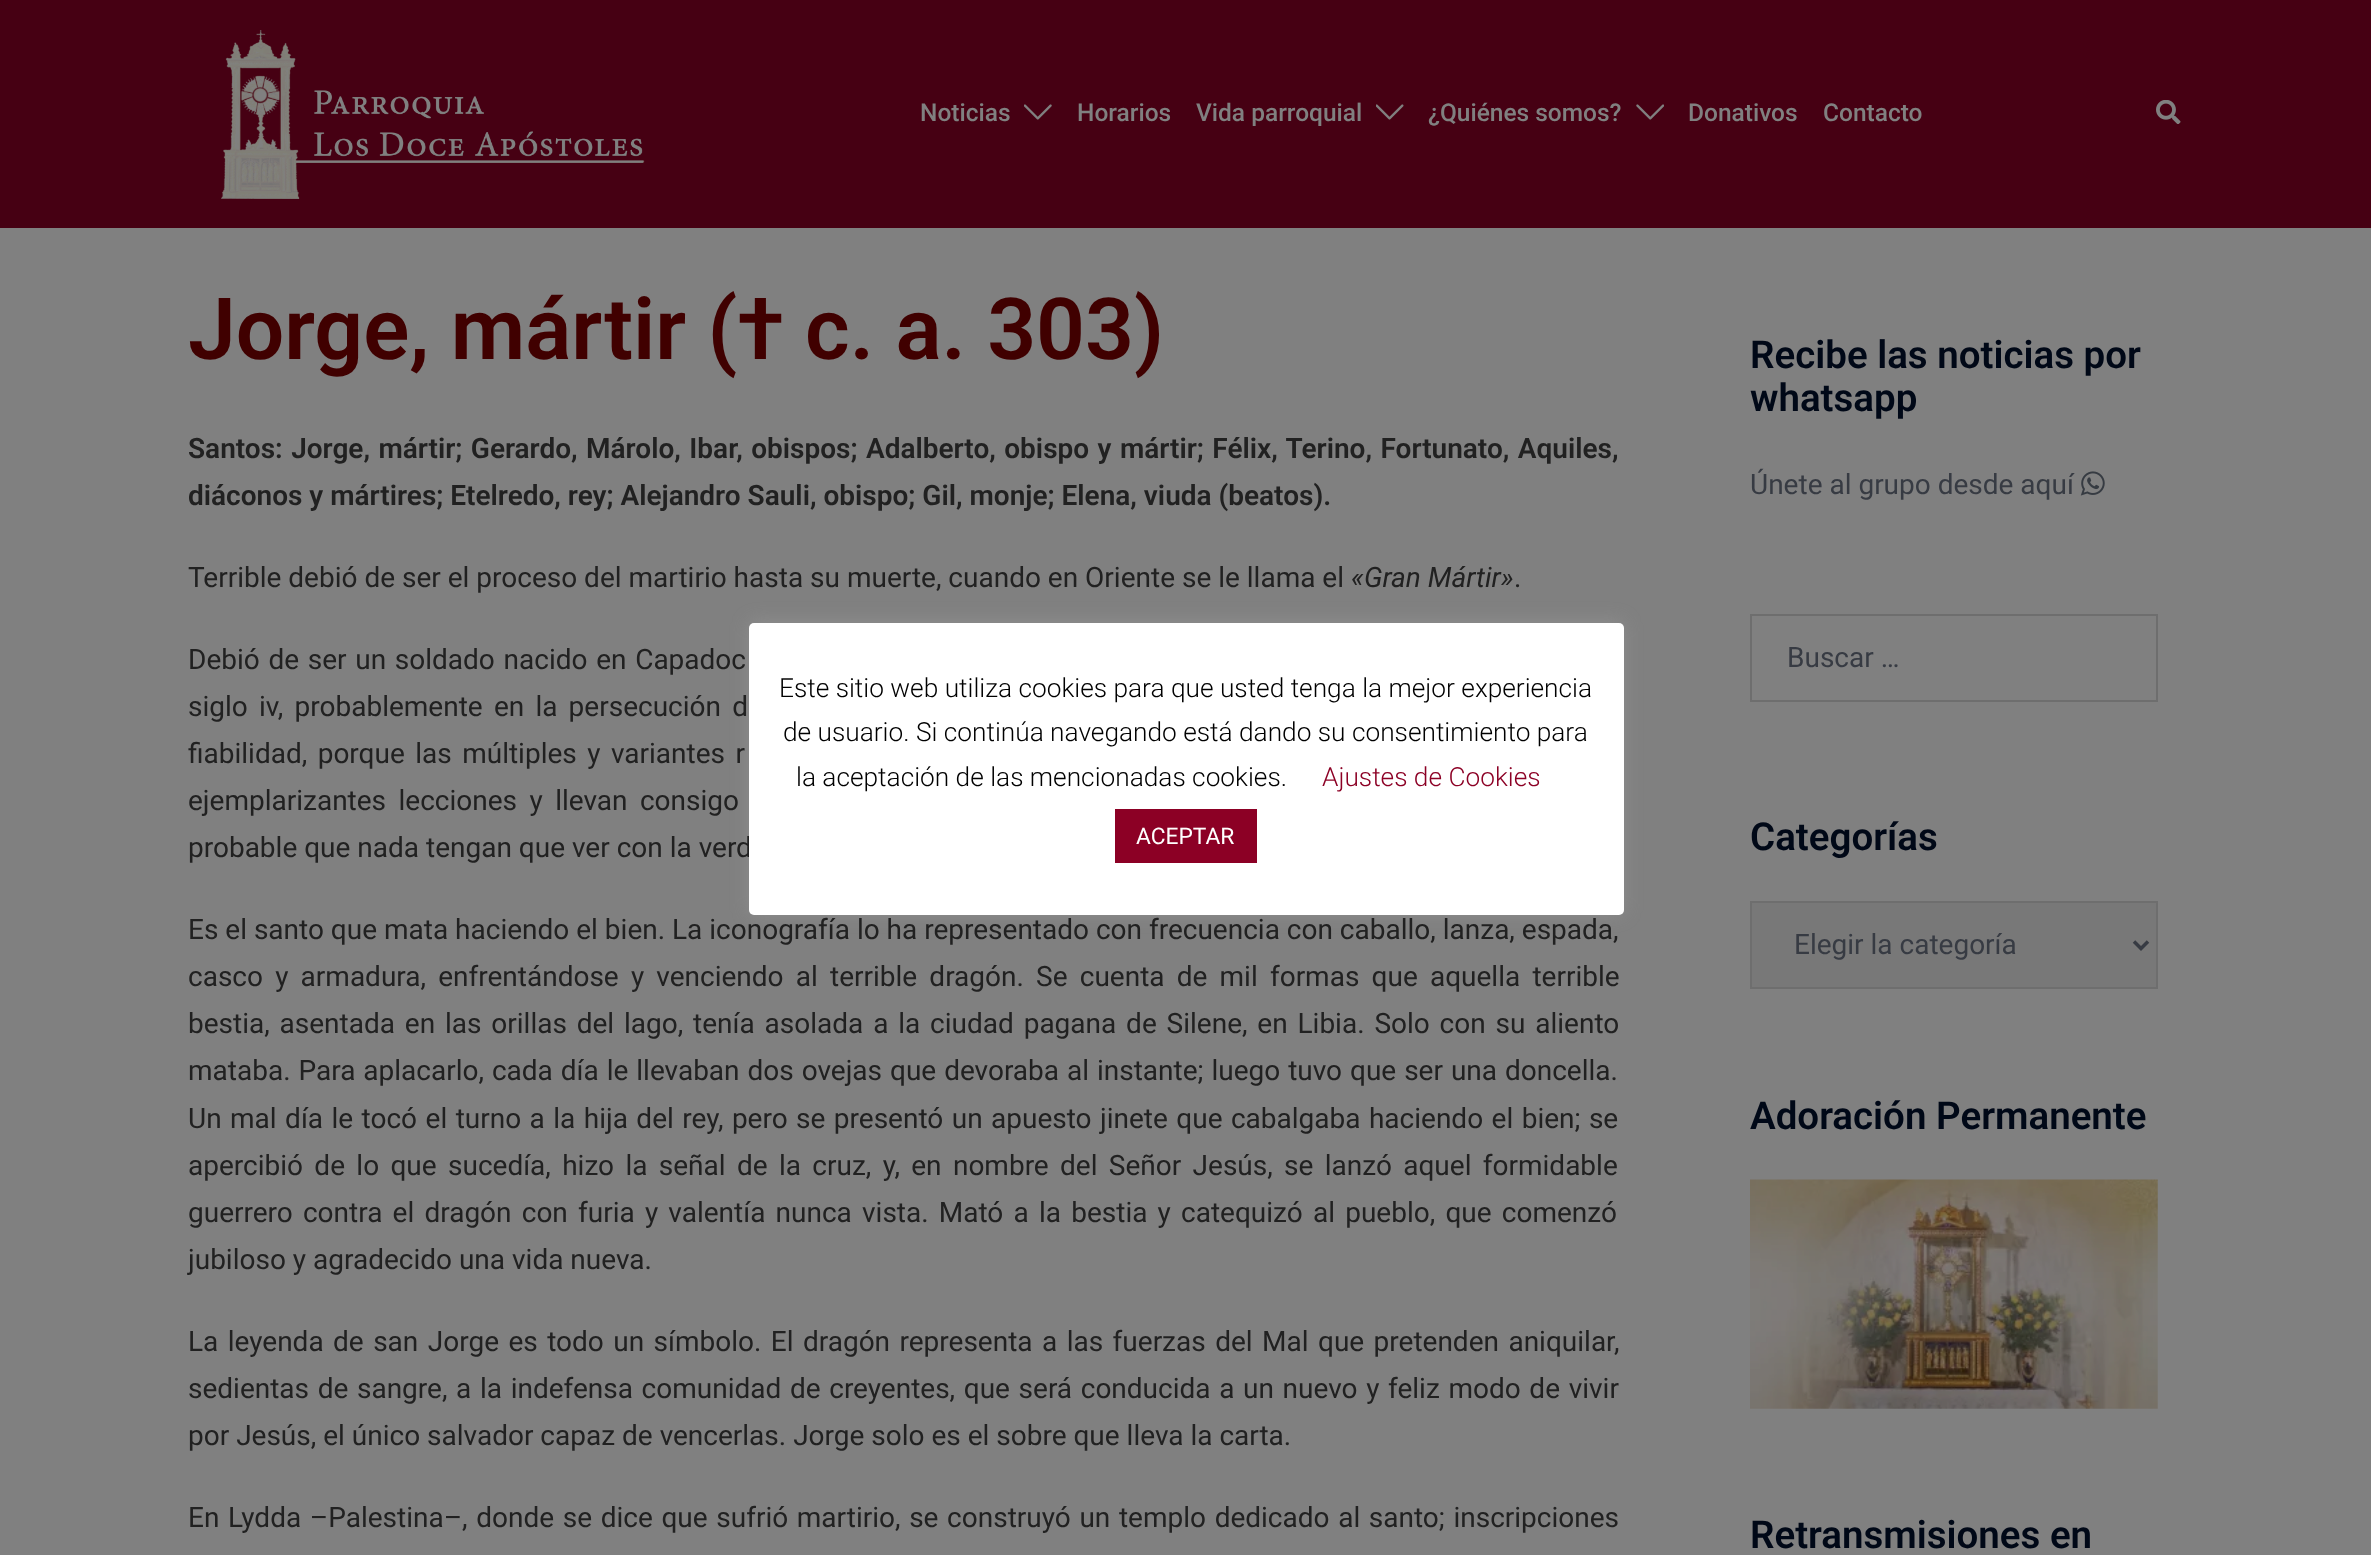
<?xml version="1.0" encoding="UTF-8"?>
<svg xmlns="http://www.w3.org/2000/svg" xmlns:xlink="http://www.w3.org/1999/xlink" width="2371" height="1555">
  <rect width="100%" height="100%" fill="#808080" />
  <rect width="2371" height="228" fill="#460013" />
  <image x="221" y="30" width="424" height="169" xlink:href="image1.png" />
  <image x="1024" y="104" width="28" height="16" xlink:href="image2.png" />
  <image x="1376" y="104" width="28" height="16" xlink:href="image3.png" />
  <image x="1636" y="104" width="28" height="16" xlink:href="image4.png" />
  <image x="2156" y="100" width="25" height="24" xlink:href="image5.png" />
  <image x="2080" y="471" width="25" height="25" xlink:href="image6.png" />
  <rect x="1751" y="615" width="406" height="86" fill="none" stroke="#6e6e6e" stroke-width="2" />
  <rect x="1751" y="902" width="406" height="86" fill="#787878" stroke="#6e6e6e" stroke-width="2" />
  <path d="M 2134 941.5 l 7 7 l 7 -7" fill="none" stroke="#373b43" stroke-width="3.5" />
  <image x="1750" y="1179" width="408" height="230" xlink:href="image7.png" />
  <rect x="749" y="621" width="875" height="293" rx="5" fill="#acabab" fill-opacity="0.3" filter="blur(9px)" />
  <text x="920" y="121" style="font-family: Roboto; font-size: 24.5px; font-weight: 500; fill: #808080">Noticias</text>
  <text x="1077" y="121" style="font-family: Roboto; font-size: 24.5px; font-weight: 500; fill: #808080">Horarios</text>
  <text x="1196" y="121" style="font-family: Roboto; font-size: 24.5px; font-weight: 500; fill: #808080">Vida parroquial</text>
  <text x="1428" y="121" style="font-family: Roboto; font-size: 24.5px; font-weight: 500; fill: #808080">¿Quiénes somos?</text>
  <text x="1688" y="121" style="font-family: Roboto; font-size: 24.5px; font-weight: 500; fill: #808080">Donativos</text>
  <text x="1823" y="121" style="font-family: Roboto; font-size: 24.5px; font-weight: 500; fill: #808080">Contacto</text>
  <text x="188" y="359" style="font-family: Roboto; font-size: 85.75px; font-weight: 600; fill: #400000">Jorge, mártir († c. a. 303)</text>
  <text x="188" y="458" word-spacing="1.5" style="font-family: Roboto; font-size: 28px; font-weight: 600; fill: #212121">Santos: Jorge, mártir; Gerardo, Márolo, Ibar, obispos; Adalberto, obispo y mártir; Félix, Terino, Fortunato, Aquiles,</text>
  <text x="188" y="505" style="font-family: Roboto; font-size: 28px; font-weight: 600; fill: #212121">diáconos y mártires; Etelredo, rey; Alejandro Sauli, obispo; Gil, monje; Elena, viuda (beatos).</text>
  <text x="188" y="587" style="font-family: Roboto; font-size: 28px; fill: #212121">Terrible debió de ser el proceso del martirio hasta su muerte, cuando en Oriente se le llama el</text>
  <text x="1351" y="587" style="font-family: Roboto; font-size: 28px; font-style: italic; fill: #212121">«Gran Mártir»</text>
  <text x="1514" y="587" style="font-family: Roboto; font-size: 28px; fill: #212121">.</text>
  <text x="188" y="669" word-spacing="1.75" style="font-family: Roboto; font-size: 28px; fill: #212121">Debió de ser un soldado nacido en Capadoc</text>
  <text x="188" y="716" word-spacing="4.25" style="font-family: Roboto; font-size: 28px; fill: #212121">siglo iv, probablemente en la persecución d</text>
  <text x="188" y="763" word-spacing="3.5" style="font-family: Roboto; font-size: 28px; fill: #212121">fiabilidad, porque las múltiples y variantes r</text>
  <text x="188" y="810" word-spacing="5.5" style="font-family: Roboto; font-size: 28px; fill: #212121">ejemplarizantes lecciones y llevan consigo</text>
  <text x="188" y="857" style="font-family: Roboto; font-size: 28px; fill: #212121">probable que nada tengan que ver con la verd</text>
  <text x="188" y="939" style="font-family: Roboto; font-size: 28px; fill: #212121">Es el santo que mata haciendo el bien. La iconografía lo ha representado con frecuencia con caballo, lanza, espada,</text>
  <text x="188" y="986" word-spacing="5.25" style="font-family: Roboto; font-size: 28px; fill: #212121">casco y armadura, enfrentándose y venciendo al terrible dragón. Se cuenta de mil formas que aquella terrible</text>
  <text x="188" y="1033" word-spacing="2.9" style="font-family: Roboto; font-size: 28px; fill: #212121">bestia, asentada en las orillas del lago, tenía asolada a la ciudad pagana de Silene, en Libia. Solo con su aliento</text>
  <text x="188" y="1080" word-spacing="1" style="font-family: Roboto; font-size: 28px; fill: #212121">mataba. Para aplacarlo, cada día le llevaban dos ovejas que devoraba al instante; luego tuvo que ser una doncella.</text>
  <text x="188" y="1128" word-spacing="1.5" style="font-family: Roboto; font-size: 28px; fill: #212121">Un mal día le tocó el turno a la hija del rey, pero se presentó un apuesto jinete que cabalgaba haciendo el bien; se</text>
  <text x="188" y="1175" word-spacing="4.4" style="font-family: Roboto; font-size: 28px; fill: #212121">apercibió de lo que sucedía, hizo la señal de la cruz, y, en nombre del Señor Jesús, se lanzó aquel formidable</text>
  <text x="188" y="1222" word-spacing="3.25" style="font-family: Roboto; font-size: 28px; fill: #212121">guerrero contra el dragón con furia y valentía nunca vista. Mató a la bestia y catequizó al pueblo, que comenzó</text>
  <text x="188" y="1269" style="font-family: Roboto; font-size: 28px; fill: #212121">jubiloso y agradecido una vida nueva.</text>
  <text x="188" y="1351" word-spacing="2.5" style="font-family: Roboto; font-size: 28px; fill: #212121">La leyenda de san Jorge es todo un símbolo. El dragón representa a las fuerzas del Mal que pretenden aniquilar,</text>
  <text x="188" y="1398" word-spacing="1.7" style="font-family: Roboto; font-size: 28px; fill: #212121">sedientas de sangre, a la indefensa comunidad de creyentes, que será conducida a un nuevo y feliz modo de vivir</text>
  <text x="188" y="1445" style="font-family: Roboto; font-size: 28px; fill: #212121">por Jesús, el único salvador capaz de vencerlas. Jorge solo es el sobre que lleva la carta.</text>
  <text x="188" y="1527" word-spacing="1.7" style="font-family: Roboto; font-size: 28px; fill: #212121">En Lydda –Palestina–, donde se dice que sufrió martirio, se construyó un templo dedicado al santo; inscripciones</text>
  <text x="1750" y="368" style="font-family: Roboto; font-size: 38.5px; font-weight: 600; fill: #000817">Recibe las noticias por</text>
  <text x="1750" y="411" style="font-family: Roboto; font-size: 38.5px; font-weight: 600; fill: #000817">whatsapp</text>
  <text x="1750" y="494" style="font-family: Roboto; font-size: 28px; fill: #373b43">Únete al grupo desde aquí</text>
  <text x="1787" y="667" style="font-family: Roboto; font-size: 28px; fill: #373b43">Buscar …</text>
  <text x="1750" y="850" style="font-family: Roboto; font-size: 38.5px; font-weight: 600; fill: #000817">Categorías</text>
  <text x="1794" y="954" style="font-family: Roboto; font-size: 28px; fill: #373b43">Elegir la categoría</text>
  <text x="1750" y="1129" style="font-family: Roboto; font-size: 38.5px; font-weight: 600; fill: #000817">Adoración Permanente</text>
  <text x="1750" y="1548" style="font-family: Roboto; font-size: 38.5px; font-weight: 600; fill: #000817">Retransmisiones en</text>
  <rect x="749" y="623" width="875" height="292" rx="5" fill="#ffffff" />
  <text x="779" y="697" style="font-family: Roboto; font-size: 26.25px; font-weight: 300; fill: #000000">Este sitio web utiliza cookies para que usted tenga la mejor experiencia</text>
  <text x="783" y="741" style="font-family: Roboto; font-size: 26.25px; font-weight: 300; fill: #000000">de usuario. Si continúa navegando está dando su consentimiento para</text>
  <text x="796" y="786" style="font-family: Roboto; font-size: 26.25px; font-weight: 300; fill: #000000">la aceptación de las mencionadas cookies.</text>
  <text x="1322" y="786" style="font-family: Roboto; font-size: 26.25px; font-weight: 300; fill: #8c0025">Ajustes de Cookies</text>
  <rect x="1115" y="809" width="142" height="54" fill="#8c0025" />
  <text x="1136" y="844" style="font-family: Roboto; font-size: 22.75px; fill: #ffffff">ACEPTAR</text>
</svg>
